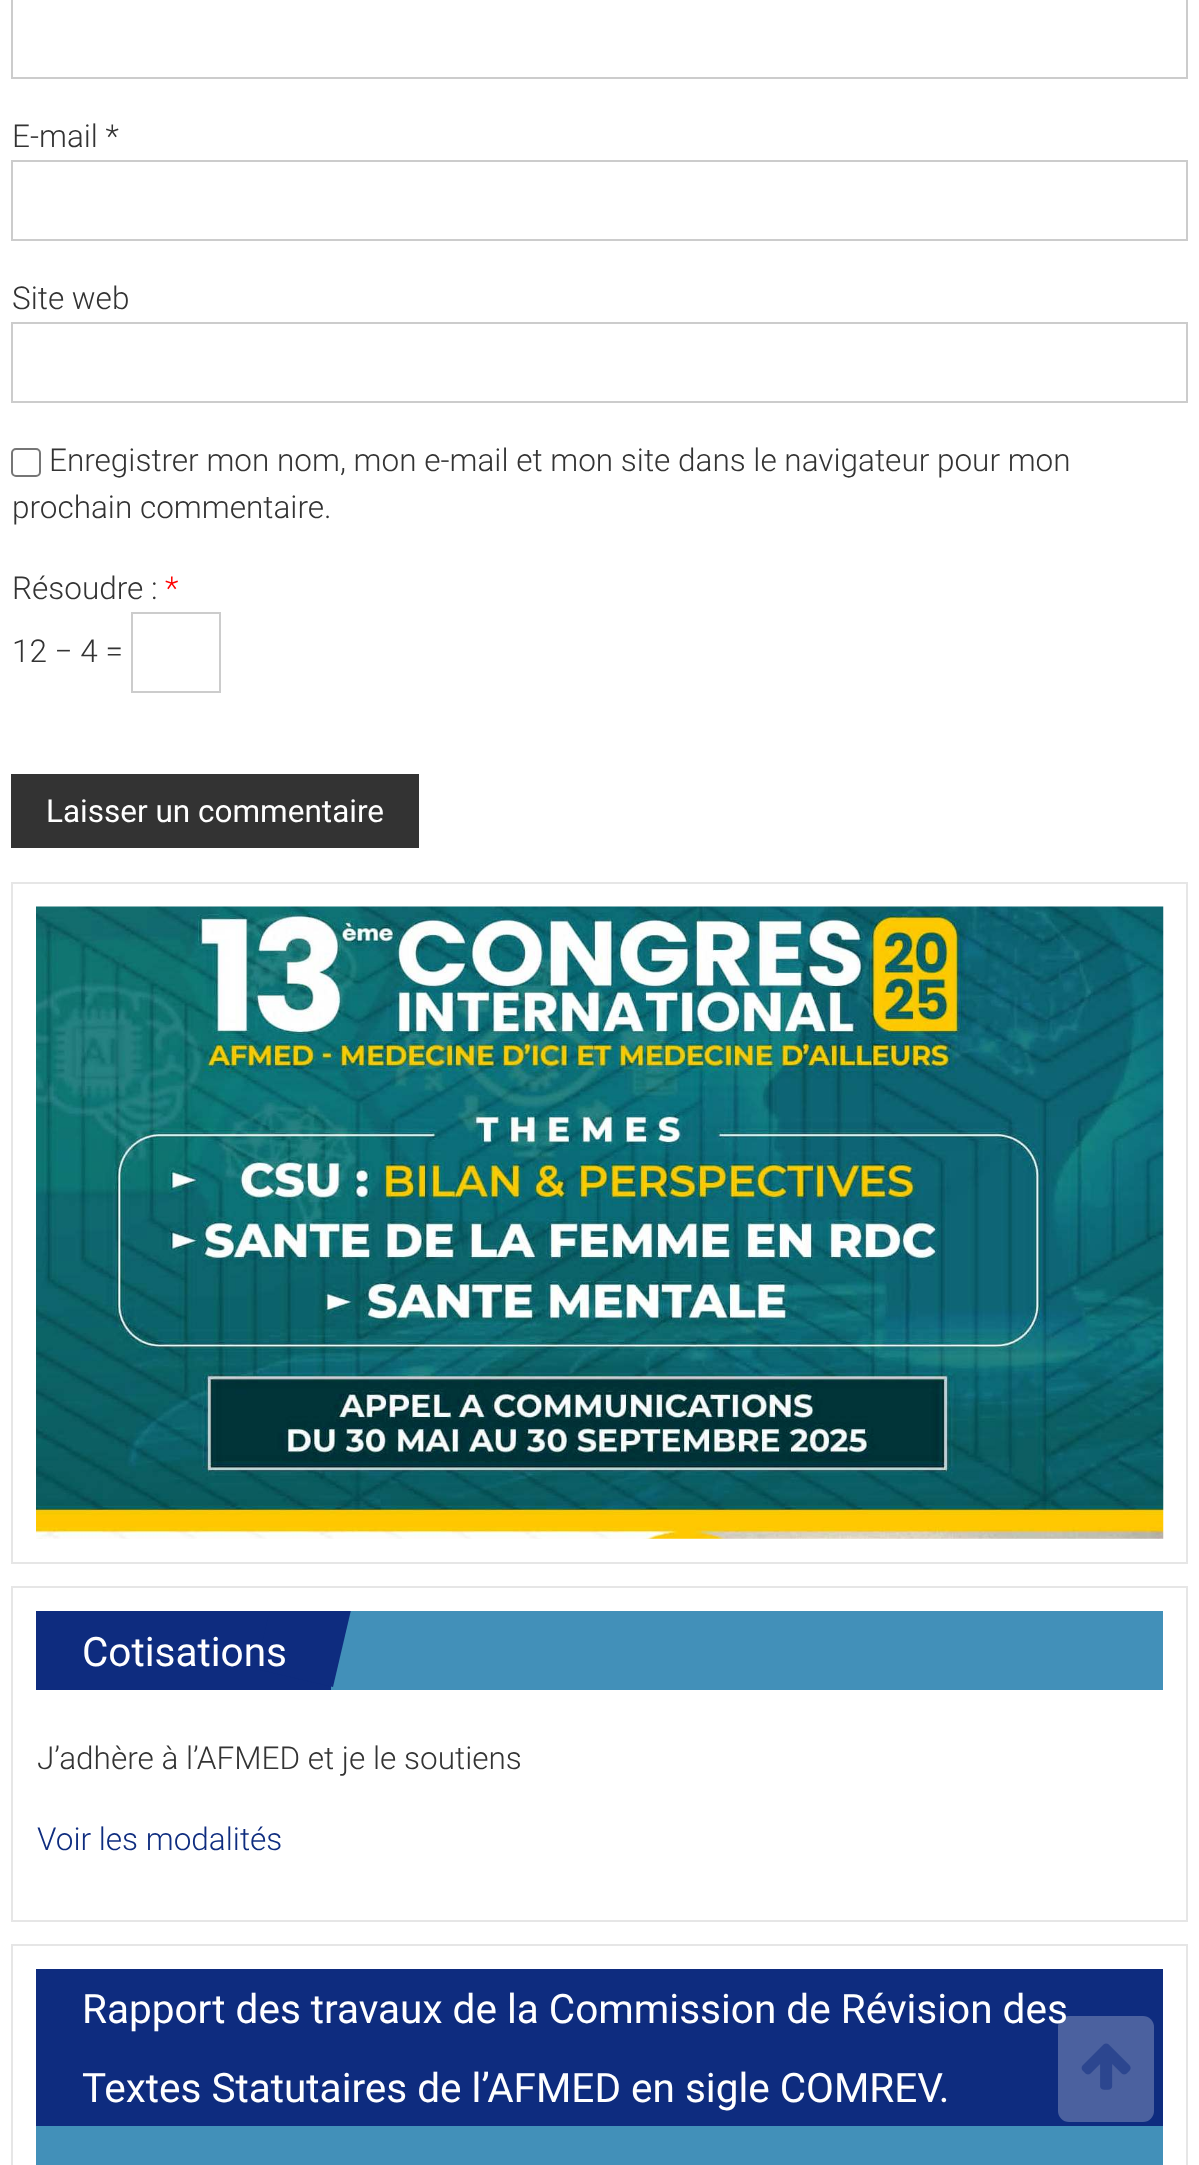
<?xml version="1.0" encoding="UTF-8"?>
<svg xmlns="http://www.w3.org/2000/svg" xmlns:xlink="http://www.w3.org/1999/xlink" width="1199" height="2165">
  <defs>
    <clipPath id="clip1"><rect x="36" y="1611" width="1127" height="79" /></clipPath>
  </defs>
  <rect width="100%" height="100%" fill="#ffffff" />
  <rect x="12" y="-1" width="1175" height="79" fill="none" stroke="#cccccc" stroke-width="2" />
  <rect x="12" y="161" width="1175" height="79" fill="none" stroke="#cccccc" stroke-width="2" />
  <rect x="12" y="323" width="1175" height="79" fill="none" stroke="#cccccc" stroke-width="2" />
  <rect x="12" y="449" width="28" height="27" rx="4" fill="none" stroke="#767676" stroke-width="2" />
  <rect x="132" y="613" width="88" height="79" fill="none" stroke="#cccccc" stroke-width="2" />
  <rect x="11" y="774" width="408" height="74" fill="#333333" />
  <rect x="12" y="883" width="1175" height="680" fill="none" stroke="#e6e6e6" stroke-width="2" />
  <image x="36" y="906" width="1128" height="633" xlink:href="image1.png" />
  <rect x="12" y="1587" width="1175" height="334" fill="none" stroke="#e6e6e6" stroke-width="2" />
  <rect x="331" y="1611" width="832" height="79" fill="#4290b9" />
  <rect x="36" y="1611" width="295" height="79" fill="#0e2c7f" />
  <g clip-path="url(#clip1)">
    <path d="M 351 1610 l -18 77 l -77 -18 l 18 -77 z" fill="#0e2c7f" />
  </g>
  <rect x="12" y="1945" width="1175" height="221" fill="none" stroke="#e6e6e6" stroke-width="2" />
  <rect x="36" y="2126" width="1127" height="39" fill="#4290b9" />
  <rect x="36" y="1969" width="1127" height="157" fill="#0e2c7f" />
  <rect x="1058" y="2016" width="96" height="106" rx="11" fill="#4b619f" />
  <image x="1081" y="2043" width="50" height="47" xlink:href="image2.png" />
  <text x="12" y="147" style="font-family: Roboto; font-size: 31.5px; font-weight: 300; fill: #333333">E-mail *</text>
  <text x="12" y="309" style="font-family: Roboto; font-size: 31.5px; font-weight: 300; fill: #333333">Site web</text>
  <text x="49" y="471" style="font-family: Roboto; font-size: 31.5px; font-weight: 300; fill: #333333">Enregistrer mon nom, mon e-mail et mon site dans le navigateur pour mon</text>
  <text x="12" y="518" style="font-family: Roboto; font-size: 31.5px; font-weight: 300; fill: #333333">prochain commentaire.</text>
  <text x="12" y="599" style="font-family: Roboto; font-size: 31.5px; font-weight: 300; fill: #333333">Résoudre :</text>
  <text x="165" y="599" style="font-family: Roboto; font-size: 31.5px; font-weight: 300; fill: #ff0000">*</text>
  <text x="12" y="662" style="font-family: Roboto; font-size: 31.5px; font-weight: 300; fill: #333333">12 − 4 =</text>
  <text x="46" y="822" style="font-family: Roboto; font-size: 31.5px; fill: #ffffff">Laisser un commentaire</text>
  <text x="82" y="1666" style="font-family: Roboto; font-size: 40.5px; fill: #ffffff">Cotisations</text>
  <text x="37" y="1769" style="font-family: Roboto; font-size: 31.5px; font-weight: 300; fill: #333333">J’adhère à l’AFMED et je le soutiens</text>
  <text x="37" y="1850" style="font-family: Roboto; font-size: 31.5px; font-weight: 300; fill: #0e2c7f">Voir les modalités</text>
  <text x="82" y="2023" style="font-family: Roboto; font-size: 40.5px; fill: #ffffff">Rapport des travaux de la Commission de Révision des</text>
  <text x="82" y="2102" style="font-family: Roboto; font-size: 40.5px; fill: #ffffff">Textes Statutaires de l’AFMED en sigle COMREV.</text>
</svg>
